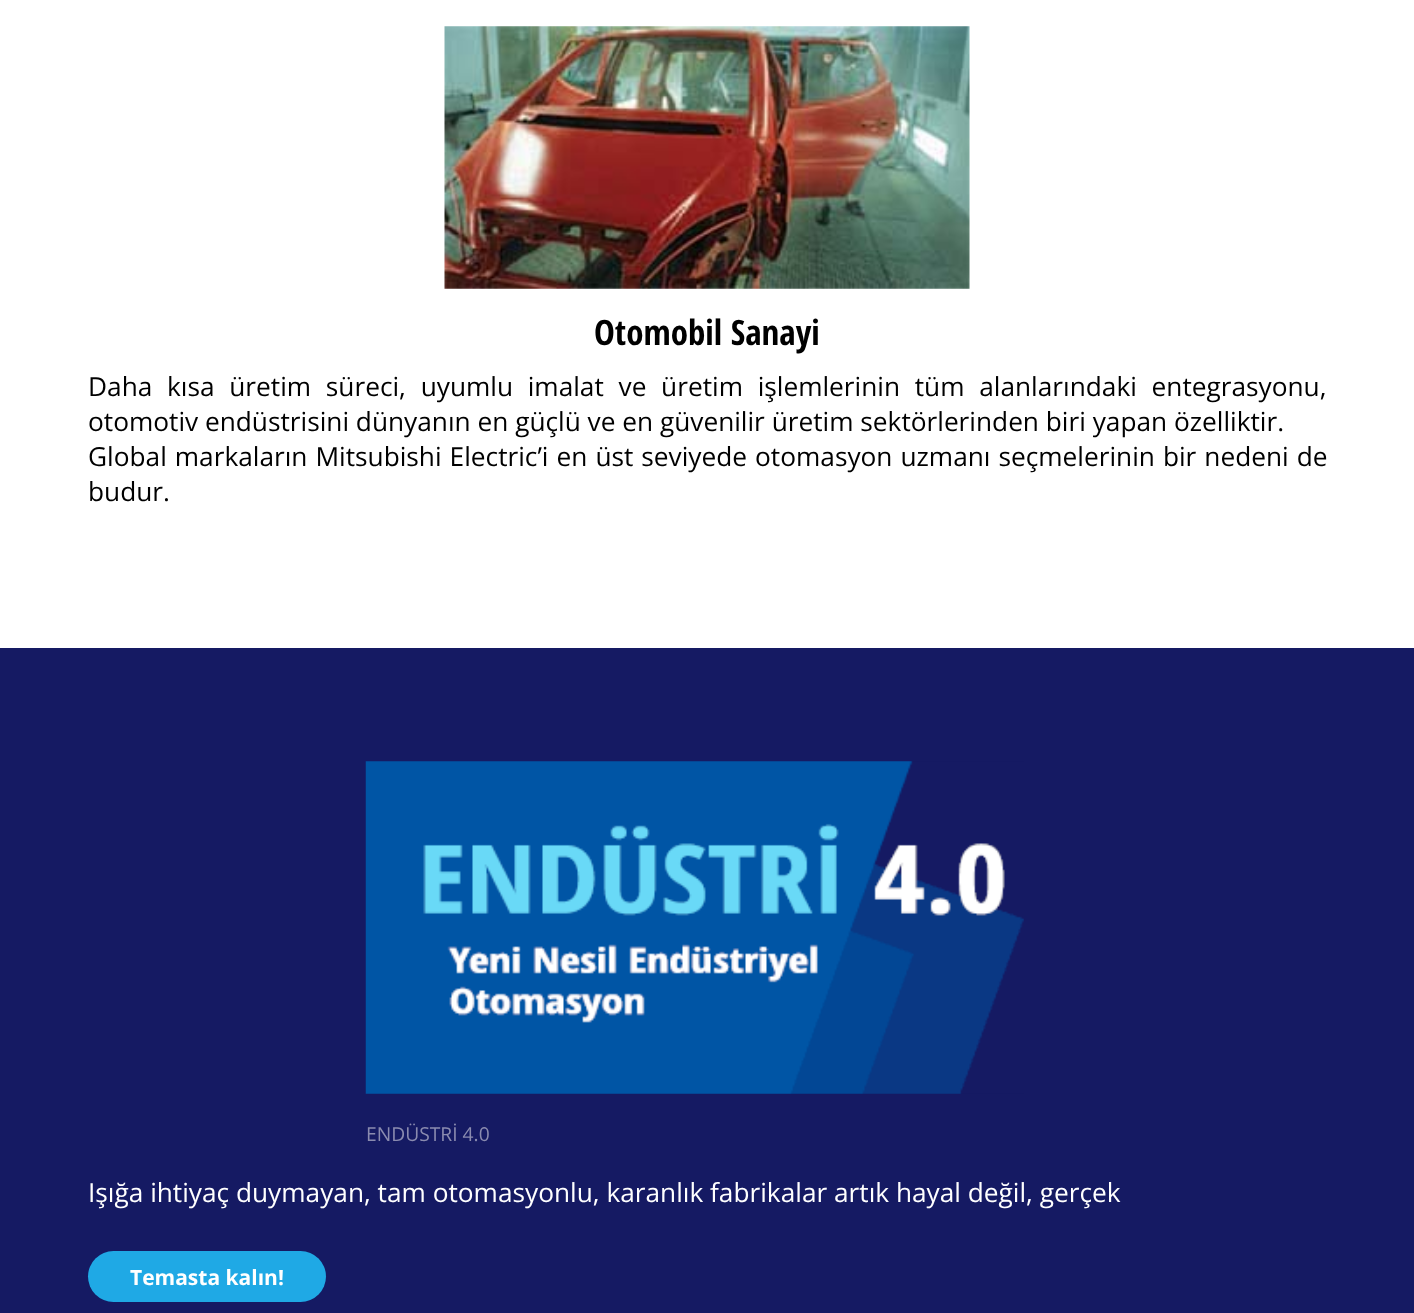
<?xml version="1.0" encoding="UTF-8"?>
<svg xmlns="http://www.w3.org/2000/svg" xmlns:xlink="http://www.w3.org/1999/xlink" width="1414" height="1313">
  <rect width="100%" height="100%" fill="#ffffff" />
  <image x="444" y="26" width="526" height="263" xlink:href="image1.png" />
  <rect y="648" width="1414" height="665" fill="#151a63" />
  <image x="365" y="761" width="659" height="333" xlink:href="image2.png" />
  <rect x="88" y="1251" width="238" height="51" rx="25.5" fill="#1fa9e5" />
  <text x="594" y="345" style="font-family: Open Sans Condensed; font-size: 35px; font-weight: bold; fill: #000000">Otomobil Sanayi</text>
  <text x="88" y="396" word-spacing="7.9" style="font-family: Open Sans; font-size: 26.25px; fill: #000000">Daha kısa üretim süreci, uyumlu imalat ve üretim işlemlerinin tüm alanlarındaki entegrasyonu,</text>
  <text x="88" y="431" style="font-family: Open Sans; font-size: 26.25px; fill: #000000">otomotiv endüstrisini dünyanın en güçlü ve en güvenilir üretim sektörlerinden biri yapan özelliktir.</text>
  <text x="88" y="466" word-spacing="1.2" style="font-family: Open Sans; font-size: 26.25px; fill: #000000">Global markaların Mitsubishi Electric’i en üst seviyede otomasyon uzmanı seçmelerinin bir nedeni de</text>
  <text x="88" y="501" style="font-family: Open Sans; font-size: 26.25px; fill: #000000">budur.</text>
  <text x="366" y="1141" style="font-family: Open Sans; font-size: 19.25px; fill: #8a8baf">ENDÜSTRİ 4.0</text>
  <text x="88" y="1202" style="font-family: Open Sans; font-size: 26.25px; fill: #ffffff">Işığa ihtiyaç duymayan, tam otomasyonlu, karanlık fabrikalar artık hayal değil, gerçek</text>
  <text x="130" y="1285" style="font-family: Open Sans; font-size: 21px; font-weight: bold; fill: #ffffff">Temasta kalın!</text>
</svg>
